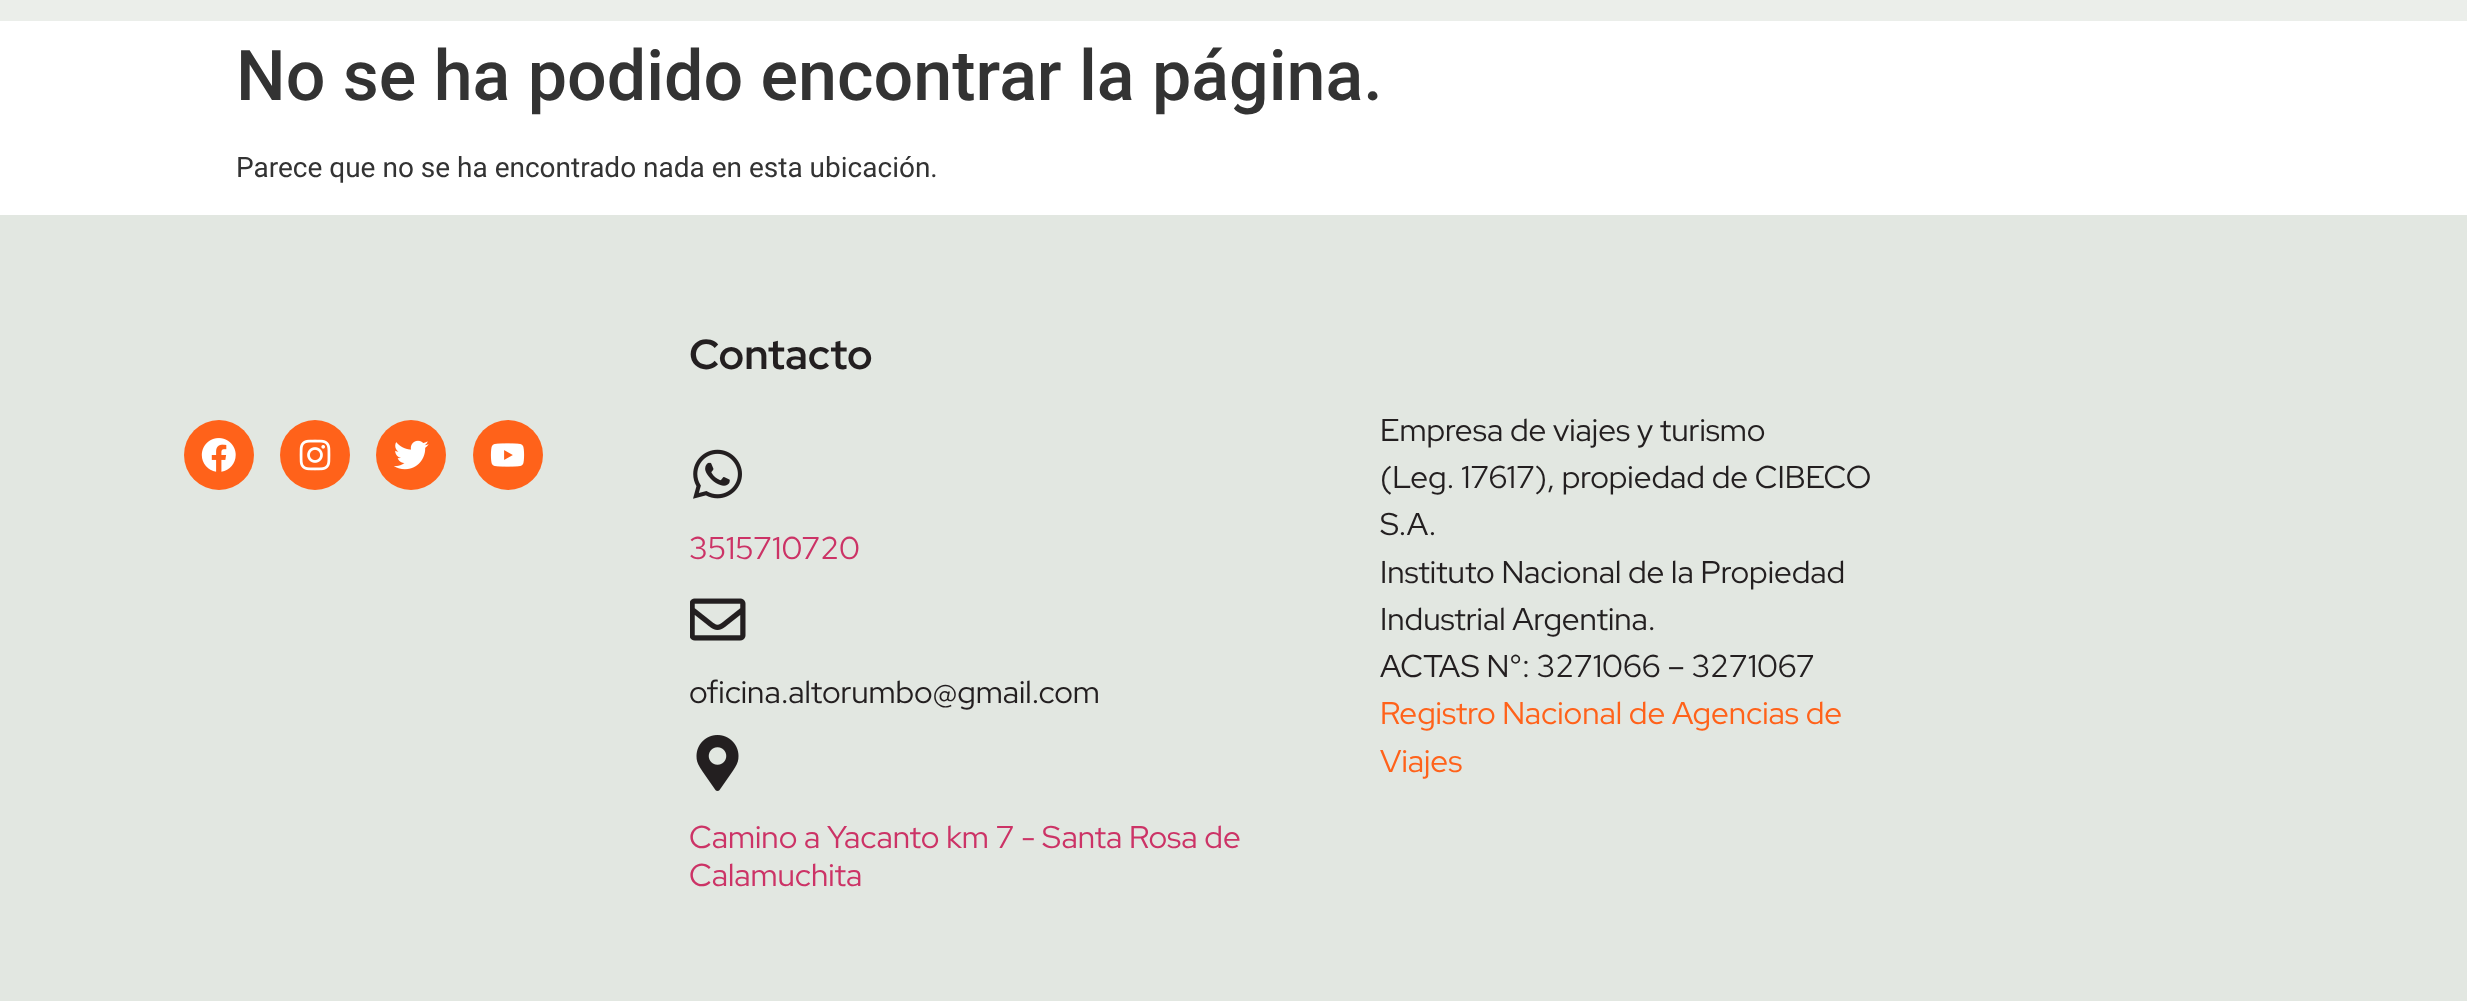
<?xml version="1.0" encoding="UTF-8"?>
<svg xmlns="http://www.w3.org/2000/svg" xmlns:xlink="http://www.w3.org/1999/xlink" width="2467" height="1001">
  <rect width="100%" height="100%" fill="#ffffff" />
  <rect width="2467" height="21" fill="#ebeeea" />
  <rect y="215" width="2467" height="786" fill="#e2e7e1" />
  <circle cx="219" cy="455" r="35" fill="#ff621a" />
  <image x="201" y="438" width="35" height="34" xlink:href="image1.png" />
  <circle cx="315" cy="455" r="35" fill="#ff621a" />
  <image x="299" y="439" width="32" height="32" xlink:href="image2.png" />
  <circle cx="411" cy="455" r="35" fill="#ff621a" />
  <image x="394" y="440" width="35" height="30" xlink:href="image3.png" />
  <circle cx="508" cy="455" r="35" fill="#ff621a" />
  <image x="490" y="443" width="35" height="24" xlink:href="image4.png" />
  <image x="693" y="449" width="49" height="50" xlink:href="image5.png" />
  <image x="690" y="598" width="56" height="43" xlink:href="image6.png" />
  <image x="696" y="735" width="43" height="56" xlink:href="image7.png" />
  <text x="236" y="100" style="font-family: Roboto; font-size: 70px; font-weight: 500; fill: #333333">No se ha podido encontrar la página.</text>
  <text x="236" y="177" style="font-family: Roboto; font-size: 28px; fill: #333333">Parece que no se ha encontrado nada en esta ubicación.</text>
  <text x="689" y="369" style="font-family: Red Hat Display; font-size: 42px; font-weight: bold; fill: #231f20">Contacto</text>
  <text x="689" y="559" style="font-family: Red Hat Display; font-size: 31.5px; fill: #cc3366">3515710720</text>
  <text x="689" y="703" style="font-family: Red Hat Display; font-size: 31.5px; fill: #231f20">oficina.altorumbo@gmail.com</text>
  <text x="689" y="848" style="font-family: Red Hat Display; font-size: 31.5px; fill: #cc3366">Camino a Yacanto km 7 - Santa Rosa de</text>
  <text x="689" y="886" style="font-family: Red Hat Display; font-size: 31.5px; fill: #cc3366">Calamuchita</text>
  <text x="1380" y="441" style="font-family: Red Hat Display; font-size: 31.5px; fill: #231f20">Empresa de viajes y turismo</text>
  <text x="1380" y="488" style="font-family: Red Hat Display; font-size: 31.5px; fill: #231f20">(Leg. 17617), propiedad de CIBECO</text>
  <text x="1380" y="535" style="font-family: Red Hat Display; font-size: 31.5px; fill: #231f20">S.A.</text>
  <text x="1380" y="583" style="font-family: Red Hat Display; font-size: 31.5px; fill: #231f20">Instituto Nacional de la Propiedad</text>
  <text x="1380" y="630" style="font-family: Red Hat Display; font-size: 31.5px; fill: #231f20">Industrial Argentina.</text>
  <text x="1380" y="677" style="font-family: Red Hat Display; font-size: 31.5px; fill: #231f20">ACTAS N°: 3271066 – 3271067</text>
  <text x="1380" y="724" style="font-family: Red Hat Display; font-size: 31.5px; fill: #ff621a">Registro Nacional de Agencias de</text>
  <text x="1380" y="772" style="font-family: Red Hat Display; font-size: 31.5px; fill: #ff621a">Viajes</text>
</svg>
